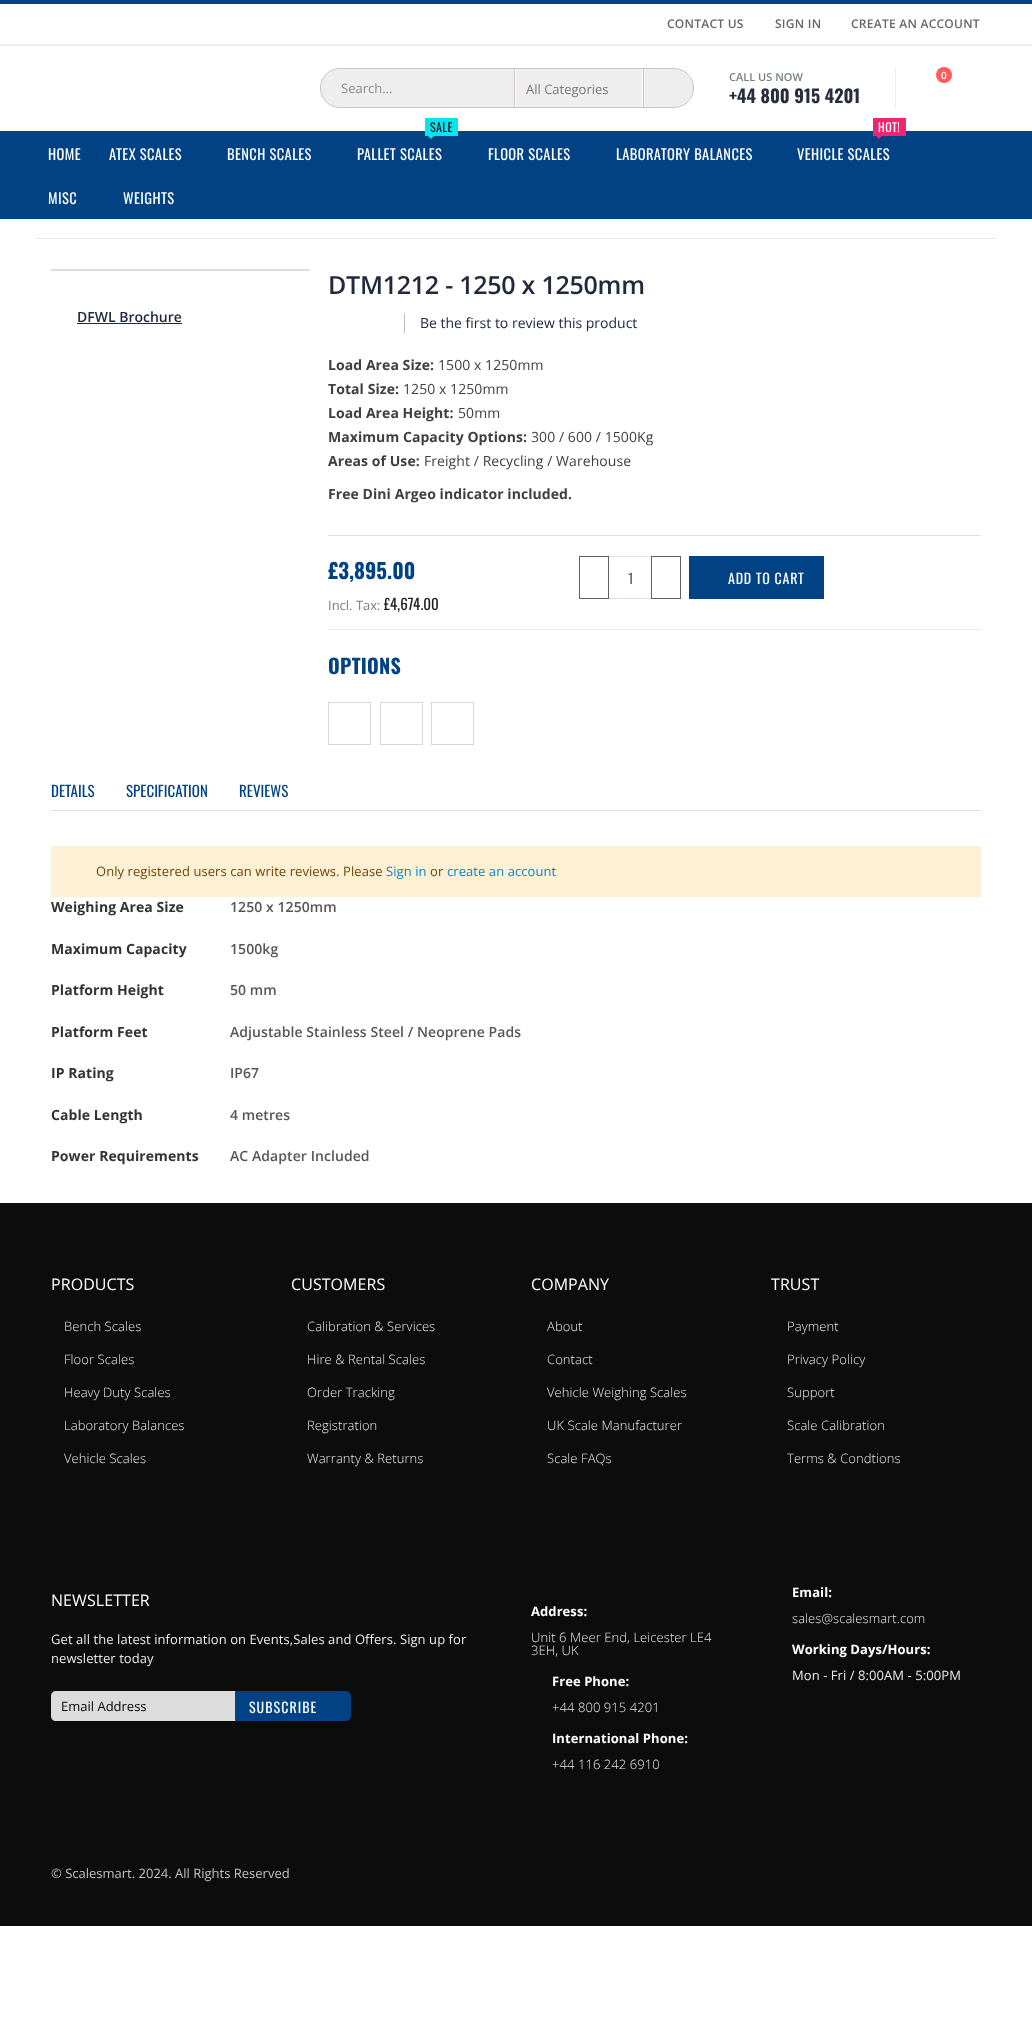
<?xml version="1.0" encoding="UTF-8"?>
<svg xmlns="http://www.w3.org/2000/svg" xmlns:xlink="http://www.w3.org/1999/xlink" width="1032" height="2032">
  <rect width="100%" height="100%" fill="#ffffff" />
  <rect width="1032" height="4" fill="#004284" />
  <rect y="44" width="1032" height="2" fill="#eeeeee" />
  <rect x="320.5" y="68.5" width="373" height="39" rx="19.5" fill="#eeeeee" stroke="#cbc2c2" />
  <rect x="514.5" y="68.5" width="129" height="39" fill="none" stroke="#cbc2c2" />
  <path d="M 643 69 v 38 l -1 -1 v -36 z" fill="#ffffff" />
  <path d="M 515 107 v -38 l 1 1 v 36 z" fill="#ffffff" />
  <rect x="644" y="68" width="1" height="40" fill="#ffffff" fill-opacity="0.2" />
  <rect x="895" y="67" width="1" height="42" fill="#eeeeee" />
  <circle cx="944" cy="75" r="8" fill="#ff5b5b" />
  <rect y="131" width="1032" height="88" fill="#004284" />
  <rect x="425" y="118" width="33" height="18" fill="#0ae3eb" />
  <path d="M 428 136 h 6 l -3 3 z" fill="#0ae3eb" />
  <rect x="873" y="118" width="33" height="18" fill="#eb2771" />
  <path d="M 876 136 h 6 l -3 3 z" fill="#eb2771" />
  <rect x="36" y="238" width="960" height="1" fill="#e6e6e6" />
  <rect x="51" y="269" width="259" height="2" fill="#dddddd" />
  <rect x="77" y="323" width="105" height="1" fill="#21293c" />
  <rect x="404" y="313" width="1" height="20" fill="#bdbdbd" />
  <rect x="328" y="535" width="653" height="1" fill="#dae2e6" />
  <rect x="608.5" y="556.5" width="43" height="42" fill="none" stroke="#dae2e6" />
  <rect x="579.5" y="556.5" width="29" height="42" fill="none" stroke="#61605a" />
  <rect x="651.5" y="556.5" width="29" height="42" fill="none" stroke="#61605a" />
  <rect x="689" y="556" width="135" height="43" fill="#004284" />
  <rect x="328" y="629" width="653" height="1" fill="#ebebeb" />
  <rect x="328.5" y="702.5" width="42" height="42" fill="none" stroke="#d8d8d6" />
  <rect x="380.5" y="702.5" width="42" height="42" fill="none" stroke="#d8d8d6" />
  <rect x="431.5" y="702.5" width="42" height="42" fill="none" stroke="#d8d8d6" />
  <rect x="51" y="810" width="930" height="1" fill="#dae2e6" />
  <rect x="51" y="846" width="930" height="51" fill="#fdf0d5" />
  <rect y="1203" width="1032" height="723" fill="#0c0c0c" />
  <path d="M 56 1691 h 180 v 30 h -180 c -3 0 -5 -2 -5 -5 v -20 c 0 -3 2 -5 5 -5 z" fill="#dcdcdc" />
  <path d="M 235.5 1691.5 h 110.5 c 2.5 0 4.5 2 4.5 4.5 v 20 c 0 2.5 -2 4.5 -4.5 4.5 h -110.5 z" fill="#004284" stroke="#004284" />
  <text x="667" y="28" style="font-family: Open Sans; font-size: 12px; font-weight: 600; letter-spacing: 0.25px; fill: #666666">CONTACT US</text>
  <text x="775" y="28" style="font-family: Open Sans; font-size: 12px; font-weight: 600; letter-spacing: 0.25px; fill: #666666">SIGN IN</text>
  <text x="851" y="28" style="font-family: Open Sans; font-size: 12px; font-weight: 600; letter-spacing: 0.25px; fill: #666666">CREATE AN ACCOUNT</text>
  <text x="341" y="93" style="font-family: Open Sans; font-size: 13px; fill: #8a8a8a">Search...</text>
  <text x="526" y="94" style="font-family: Open Sans; font-size: 13px; fill: #777777">All Categories</text>
  <text x="729" y="81" style="font-family: Open Sans; font-size: 11px; font-weight: 600; fill: #767f84">CALL US NOW</text>
  <text x="729" y="103" style="font-family: Oswald; font-size: 18px; font-weight: bold; fill: #282d3b">+44 800 915 4201</text>
  <text x="941" y="79" style="font-family: Open Sans; font-size: 10px; font-weight: 600; fill: #ffffff">0</text>
  <text x="48" y="160" style="font-family: Oswald; font-size: 14.5px; letter-spacing: 0.4px; fill: #ffffff">HOME</text>
  <text x="109" y="160" style="font-family: Oswald; font-size: 14.5px; letter-spacing: 0.4px; fill: #ffffff">ATEX SCALES</text>
  <text x="227" y="160" style="font-family: Oswald; font-size: 14.5px; letter-spacing: 0.4px; fill: #ffffff">BENCH SCALES</text>
  <text x="430" y="132" style="font-family: Oswald; font-size: 12px; letter-spacing: 0.4px; fill: #111111">SALE</text>
  <text x="357" y="160" style="font-family: Oswald; font-size: 14.5px; letter-spacing: 0.4px; fill: #ffffff">PALLET SCALES</text>
  <text x="488" y="160" style="font-family: Oswald; font-size: 14.5px; letter-spacing: 0.4px; fill: #ffffff">FLOOR SCALES</text>
  <text x="616" y="160" style="font-family: Oswald; font-size: 14.5px; letter-spacing: 0.4px; fill: #ffffff">LABORATORY BALANCES</text>
  <text x="878" y="132" style="font-family: Oswald; font-size: 12px; letter-spacing: 0.4px; fill: #ffffff">HOT!</text>
  <text x="797" y="160" style="font-family: Oswald; font-size: 14.5px; letter-spacing: 0.4px; fill: #ffffff">VEHICLE SCALES</text>
  <text x="48" y="204" style="font-family: Oswald; font-size: 14.5px; letter-spacing: 0.4px; fill: #ffffff">MISC</text>
  <text x="123" y="204" style="font-family: Oswald; font-size: 14.5px; letter-spacing: 0.4px; fill: #ffffff">WEIGHTS</text>
  <text x="77" y="322" style="font-family: Open Sans; font-size: 14px; font-weight: 600; fill: #21293c">DFWL Brochure</text>
  <text x="328" y="294" style="font-family: Open Sans; font-size: 25px; font-weight: 600; letter-spacing: -0.25px; fill: #21293c">DTM1212 - 1250 x 1250mm</text>
  <text x="420" y="328" style="font-family: Open Sans; font-size: 14px; fill: #21293c">Be the first to review this product</text>
  <text x="328" y="370" style="font-family: Open Sans; font-size: 14px; font-weight: bold; letter-spacing: 0.07px; fill: #404041">Load Area Size:</text>
  <text x="438" y="370" style="font-family: Open Sans; font-size: 14px; letter-spacing: 0.07px; fill: #404041">1500 x 1250mm</text>
  <text x="328" y="394" style="font-family: Open Sans; font-size: 14px; font-weight: bold; letter-spacing: 0.07px; fill: #404041">Total Size:</text>
  <text x="403" y="394" style="font-family: Open Sans; font-size: 14px; letter-spacing: 0.07px; fill: #404041">1250 x 1250mm</text>
  <text x="328" y="418" style="font-family: Open Sans; font-size: 14px; font-weight: bold; letter-spacing: 0.07px; fill: #404041">Load Area Height:</text>
  <text x="458" y="418" style="font-family: Open Sans; font-size: 14px; letter-spacing: 0.07px; fill: #404041">50mm</text>
  <text x="328" y="442" style="font-family: Open Sans; font-size: 14px; font-weight: bold; letter-spacing: 0.07px; fill: #404041">Maximum Capacity Options:</text>
  <text x="531" y="442" style="font-family: Open Sans; font-size: 14px; letter-spacing: 0.07px; fill: #404041">300 / 600 / 1500Kg</text>
  <text x="328" y="466" style="font-family: Open Sans; font-size: 14px; font-weight: bold; letter-spacing: 0.07px; fill: #404041">Areas of Use:</text>
  <text x="424" y="466" style="font-family: Open Sans; font-size: 14px; letter-spacing: 0.07px; fill: #404041">Freight / Recycling / Warehouse</text>
  <text x="328" y="499" style="font-family: Open Sans; font-size: 14px; font-weight: bold; letter-spacing: 0.07px; fill: #404041">Free Dini Argeo indicator included.</text>
  <text x="328" y="579" style="font-family: Oswald; font-size: 21px; font-weight: bold; fill: #004284">£3,895.00</text>
  <text x="328" y="610" style="font-family: Open Sans; font-size: 13px; fill: #767f84">Incl. Tax:</text>
  <text x="384" y="610" style="font-family: Oswald; font-size: 15px; letter-spacing: 0.07px; fill: #222222">£4,674.00</text>
  <text x="628" y="584" style="font-family: Oswald; font-size: 14px; fill: #61605a">1</text>
  <text x="728" y="584" style="font-family: Oswald; font-size: 14px; letter-spacing: 0.75px; fill: #ffffff">ADD TO CART</text>
  <text x="328" y="674" style="font-family: Oswald; font-size: 20px; font-weight: bold; letter-spacing: 0.25px; fill: #004284">OPTIONS</text>
  <text x="51" y="797" style="font-family: Oswald; font-size: 15px; fill: #004284">DETAILS</text>
  <text x="126" y="797" style="font-family: Oswald; font-size: 15px; fill: #004284">SPECIFICATION</text>
  <text x="239" y="797" style="font-family: Oswald; font-size: 15px; fill: #004284">REVIEWS</text>
  <text x="96" y="876" style="font-family: Open Sans; font-size: 13px; letter-spacing: 0.07px; fill: #6f4400">Only registered users can write reviews. Please</text>
  <text x="386" y="876" style="font-family: Open Sans; font-size: 13px; letter-spacing: 0.07px; fill: #0088cc">Sign in</text>
  <text x="430" y="876" style="font-family: Open Sans; font-size: 13px; letter-spacing: 0.07px; fill: #6f4400">or</text>
  <text x="447" y="876" style="font-family: Open Sans; font-size: 13px; letter-spacing: 0.07px; fill: #0088cc">create an account</text>
  <text x="51" y="912" style="font-family: Open Sans; font-size: 14px; font-weight: bold; letter-spacing: 0.07px; fill: #333333">Weighing Area Size</text>
  <text x="230" y="912" style="font-family: Open Sans; font-size: 14px; font-weight: 600; letter-spacing: 0.07px; fill: #585555">1250 x 1250mm</text>
  <text x="51" y="954" style="font-family: Open Sans; font-size: 14px; font-weight: bold; letter-spacing: 0.07px; fill: #333333">Maximum Capacity</text>
  <text x="230" y="954" style="font-family: Open Sans; font-size: 14px; font-weight: 600; letter-spacing: 0.07px; fill: #585555">1500kg</text>
  <text x="51" y="995" style="font-family: Open Sans; font-size: 14px; font-weight: bold; letter-spacing: 0.07px; fill: #333333">Platform Height</text>
  <text x="230" y="995" style="font-family: Open Sans; font-size: 14px; font-weight: 600; letter-spacing: 0.07px; fill: #585555">50 mm</text>
  <text x="51" y="1037" style="font-family: Open Sans; font-size: 14px; font-weight: bold; letter-spacing: 0.07px; fill: #333333">Platform Feet</text>
  <text x="230" y="1037" style="font-family: Open Sans; font-size: 14px; font-weight: 600; letter-spacing: 0.07px; fill: #585555">Adjustable Stainless Steel / Neoprene Pads</text>
  <text x="51" y="1078" style="font-family: Open Sans; font-size: 14px; font-weight: bold; letter-spacing: 0.07px; fill: #333333">IP Rating</text>
  <text x="230" y="1078" style="font-family: Open Sans; font-size: 14px; font-weight: 600; letter-spacing: 0.07px; fill: #585555">IP67</text>
  <text x="51" y="1120" style="font-family: Open Sans; font-size: 14px; font-weight: bold; letter-spacing: 0.07px; fill: #333333">Cable Length</text>
  <text x="230" y="1120" style="font-family: Open Sans; font-size: 14px; font-weight: 600; letter-spacing: 0.07px; fill: #585555">4 metres</text>
  <text x="51" y="1161" style="font-family: Open Sans; font-size: 14px; font-weight: bold; letter-spacing: 0.07px; fill: #333333">Power Requirements</text>
  <text x="230" y="1161" style="font-family: Open Sans; font-size: 14px; font-weight: 600; letter-spacing: 0.07px; fill: #585555">AC Adapter Included</text>
  <text x="51" y="1290" style="font-family: Open Sans; font-size: 16px; letter-spacing: 0.07px; fill: #ffffff">PRODUCTS</text>
  <text x="64" y="1331" style="font-family: Open Sans; font-size: 13px; font-weight: 300; letter-spacing: 0.07px; fill: #eaeaea">Bench Scales</text>
  <text x="64" y="1364" style="font-family: Open Sans; font-size: 13px; font-weight: 300; letter-spacing: 0.07px; fill: #eaeaea">Floor Scales</text>
  <text x="64" y="1397" style="font-family: Open Sans; font-size: 13px; font-weight: 300; letter-spacing: 0.07px; fill: #eaeaea">Heavy Duty Scales</text>
  <text x="64" y="1430" style="font-family: Open Sans; font-size: 13px; font-weight: 300; letter-spacing: 0.07px; fill: #eaeaea">Laboratory Balances</text>
  <text x="64" y="1463" style="font-family: Open Sans; font-size: 13px; font-weight: 300; letter-spacing: 0.07px; fill: #eaeaea">Vehicle Scales</text>
  <text x="291" y="1290" style="font-family: Open Sans; font-size: 16px; letter-spacing: 0.07px; fill: #ffffff">CUSTOMERS</text>
  <text x="307" y="1331" style="font-family: Open Sans; font-size: 13px; font-weight: 300; letter-spacing: 0.07px; fill: #eaeaea">Calibration &amp; Services</text>
  <text x="307" y="1364" style="font-family: Open Sans; font-size: 13px; font-weight: 300; letter-spacing: 0.07px; fill: #eaeaea">Hire &amp; Rental Scales</text>
  <text x="307" y="1397" style="font-family: Open Sans; font-size: 13px; font-weight: 300; letter-spacing: 0.07px; fill: #eaeaea">Order Tracking</text>
  <text x="307" y="1430" style="font-family: Open Sans; font-size: 13px; font-weight: 300; letter-spacing: 0.07px; fill: #eaeaea">Registration</text>
  <text x="307" y="1463" style="font-family: Open Sans; font-size: 13px; font-weight: 300; letter-spacing: 0.07px; fill: #eaeaea">Warranty &amp; Returns</text>
  <text x="531" y="1290" style="font-family: Open Sans; font-size: 16px; letter-spacing: 0.07px; fill: #ffffff">COMPANY</text>
  <text x="547" y="1331" style="font-family: Open Sans; font-size: 13px; font-weight: 300; letter-spacing: 0.07px; fill: #eaeaea">About</text>
  <text x="547" y="1364" style="font-family: Open Sans; font-size: 13px; font-weight: 300; letter-spacing: 0.07px; fill: #eaeaea">Contact</text>
  <text x="547" y="1397" style="font-family: Open Sans; font-size: 13px; font-weight: 300; letter-spacing: 0.07px; fill: #eaeaea">Vehicle Weighing Scales</text>
  <text x="547" y="1430" style="font-family: Open Sans; font-size: 13px; font-weight: 300; letter-spacing: 0.07px; fill: #eaeaea">UK Scale Manufacturer</text>
  <text x="547" y="1463" style="font-family: Open Sans; font-size: 13px; font-weight: 300; letter-spacing: 0.07px; fill: #eaeaea">Scale FAQs</text>
  <text x="771" y="1290" style="font-family: Open Sans; font-size: 16px; letter-spacing: 0.07px; fill: #ffffff">TRUST</text>
  <text x="787" y="1331" style="font-family: Open Sans; font-size: 13px; font-weight: 300; letter-spacing: 0.07px; fill: #eaeaea">Payment</text>
  <text x="787" y="1364" style="font-family: Open Sans; font-size: 13px; font-weight: 300; letter-spacing: 0.07px; fill: #eaeaea">Privacy Policy</text>
  <text x="787" y="1397" style="font-family: Open Sans; font-size: 13px; font-weight: 300; letter-spacing: 0.07px; fill: #eaeaea">Support</text>
  <text x="787" y="1430" style="font-family: Open Sans; font-size: 13px; font-weight: 300; letter-spacing: 0.07px; fill: #eaeaea">Scale Calibration</text>
  <text x="787" y="1463" style="font-family: Open Sans; font-size: 13px; font-weight: 300; letter-spacing: 0.07px; fill: #eaeaea">Terms &amp; Condtions</text>
  <text x="51" y="1606" style="font-family: Open Sans; font-size: 16px; letter-spacing: 0.07px; fill: #ffffff">NEWSLETTER</text>
  <text x="51" y="1644" style="font-family: Open Sans; font-size: 13px; letter-spacing: 0.07px; fill: #eaeaea">Get all the latest information on Events,Sales and Offers. Sign up for</text>
  <text x="51" y="1663" style="font-family: Open Sans; font-size: 13px; letter-spacing: 0.07px; fill: #eaeaea">newsletter today</text>
  <text x="61" y="1711" style="font-family: Open Sans; font-size: 13px; fill: #000000">Email Address</text>
  <text x="249" y="1713" style="font-family: Oswald; font-size: 14px; letter-spacing: 1px; fill: #ffffff">SUBSCRIBE</text>
  <text x="531" y="1616" style="font-family: Open Sans; font-size: 13px; font-weight: bold; letter-spacing: 0.07px; fill: #ffffff">Address:</text>
  <text x="531" y="1642" style="font-family: Open Sans; font-size: 13px; font-weight: 300; letter-spacing: 0.07px; fill: #eaeaea">Unit 6 Meer End, Leicester LE4</text>
  <text x="531" y="1655" style="font-family: Open Sans; font-size: 13px; font-weight: 300; letter-spacing: 0.07px; fill: #eaeaea">3EH, UK</text>
  <text x="552" y="1686" style="font-family: Open Sans; font-size: 13px; font-weight: bold; letter-spacing: 0.07px; fill: #ffffff">Free Phone:</text>
  <text x="552" y="1712" style="font-family: Open Sans; font-size: 13px; font-weight: 300; letter-spacing: 0.07px; fill: #eaeaea">+44 800 915 4201</text>
  <text x="552" y="1743" style="font-family: Open Sans; font-size: 13px; font-weight: bold; letter-spacing: 0.07px; fill: #ffffff">International Phone:</text>
  <text x="552" y="1769" style="font-family: Open Sans; font-size: 13px; font-weight: 300; letter-spacing: 0.07px; fill: #eaeaea">+44 116 242 6910</text>
  <text x="792" y="1597" style="font-family: Open Sans; font-size: 13px; font-weight: bold; letter-spacing: 0.07px; fill: #ffffff">Email:</text>
  <text x="792" y="1623" style="font-family: Open Sans; font-size: 13px; font-weight: 300; letter-spacing: 0.07px; fill: #eaeaea">sales@scalesmart.com</text>
  <text x="792" y="1654" style="font-family: Open Sans; font-size: 13px; font-weight: bold; letter-spacing: 0.07px; fill: #ffffff">Working Days/Hours:</text>
  <text x="792" y="1680" style="font-family: Open Sans; font-size: 13px; letter-spacing: 0.07px; fill: #eaeaea">Mon - Fri / 8:00AM - 5:00PM</text>
  <text x="51" y="1878" style="font-family: Open Sans; font-size: 13px; fill: #c2c2c2">© Scalesmart. 2024. All Rights Reserved</text>
</svg>
